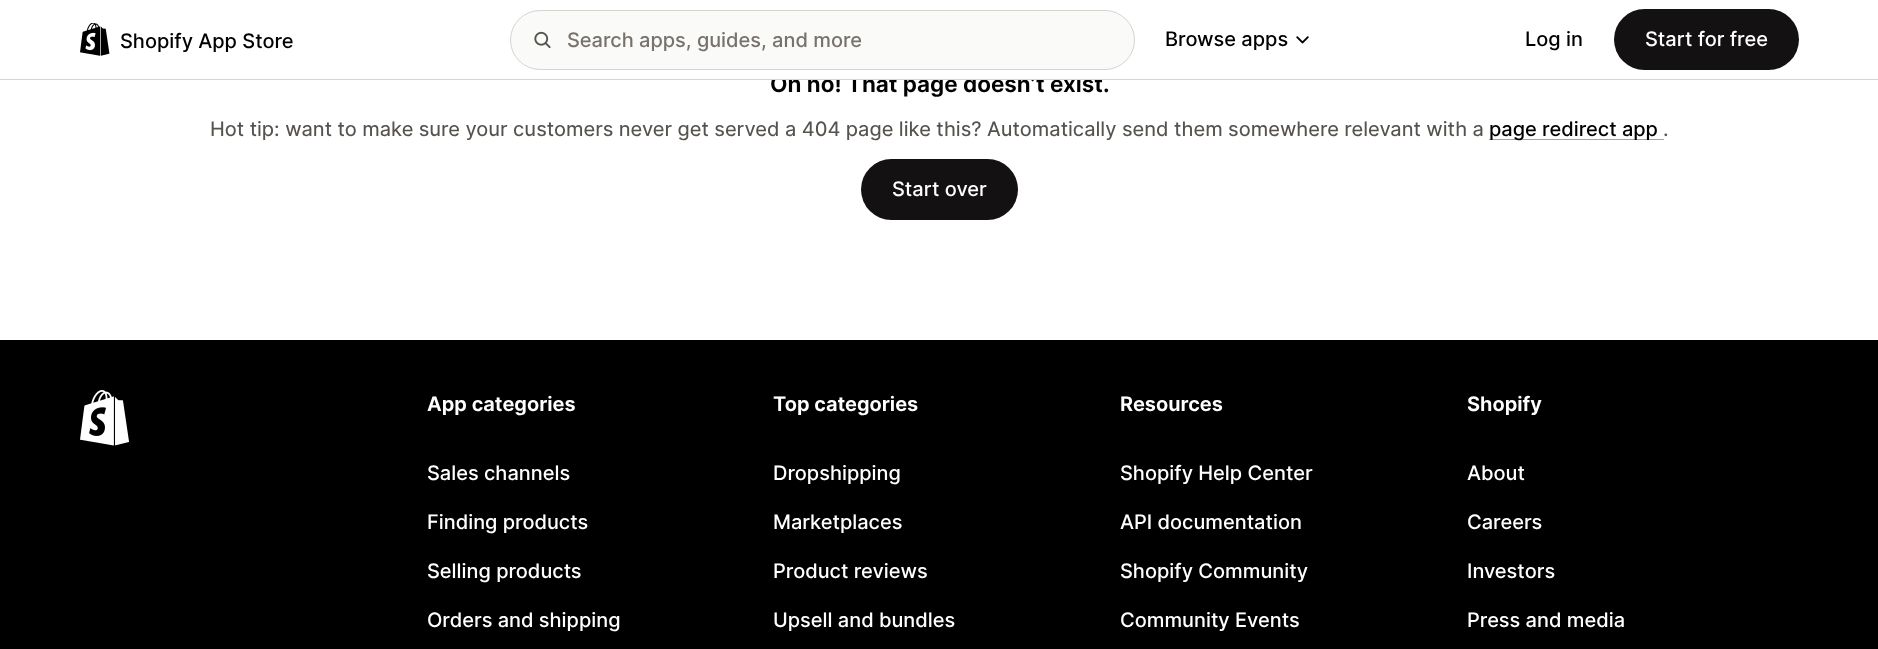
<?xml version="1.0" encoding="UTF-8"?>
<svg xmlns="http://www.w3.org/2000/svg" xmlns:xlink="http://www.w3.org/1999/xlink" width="1878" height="649">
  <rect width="100%" height="100%" fill="#ffffff" />
  <image x="80" y="23" width="30" height="33" xlink:href="image1.png" />
  <rect x="510.5" y="10.5" width="624" height="59" rx="29.5" fill="#fafaf9" stroke="#d6d3d1" />
  <image x="534" y="31" width="17" height="18" xlink:href="image2.png" />
  <image x="1296" y="36" width="13" height="8" xlink:href="image3.png" />
  <rect x="1614" y="9" width="185" height="61" rx="30.5" fill="#131111" />
  <rect x="1489" y="139" width="175" height="1" fill="#a8a29f" />
  <rect x="861" y="159" width="157" height="61" rx="30.5" fill="#131111" />
  <rect y="340" width="1878" height="309" fill="#000000" />
  <image x="80" y="390" width="50" height="56" xlink:href="image4.png" />
  <text x="120" y="48" style="font-family: Inter; font-size: 20px; font-weight: 500; fill: #000000">Shopify App Store</text>
  <text x="567" y="47" style="font-family: Inter; font-size: 20px; font-weight: 500; fill: #78726d">Search apps, guides, and more</text>
  <text x="1165" y="46" style="font-family: Inter; font-size: 20px; font-weight: 500; fill: #000000">Browse apps</text>
  <text x="1525" y="46" style="font-family: Inter; font-size: 20px; font-weight: 500; fill: #000000">Log in</text>
  <text x="1645" y="46" style="font-family: Inter; font-size: 20px; font-weight: 500; fill: #ffffff">Start for free</text>
  <text x="770" y="92" style="font-family: Inter; font-size: 22.5px; font-weight: 600; fill: #000000">Oh no! That page doesn’t exist.</text>
  <rect y="79" width="1878" height="1" fill="#d6d3d1" />
  <rect x="772" y="74" width="328" height="5" fill="#ffffff" />
  <text x="210" y="136" style="font-family: Inter; font-size: 20px; fill: #56524e">Hot tip: want to make sure your customers never get served a 404 page like this? Automatically send them somewhere relevant with a</text>
  <text x="1489" y="136" style="font-family: Inter; font-size: 20px; font-weight: 500; fill: #000000">page redirect app</text>
  <text x="1663" y="136" style="font-family: Inter; font-size: 20px; fill: #56524e">.</text>
  <text x="892" y="196" style="font-family: Inter; font-size: 20px; font-weight: 500; fill: #ffffff">Start over</text>
  <text x="427" y="411" style="font-family: Inter; font-size: 20px; font-weight: 600; fill: #ffffff">App categories</text>
  <text x="427" y="480" style="font-family: Inter; font-size: 20px; font-weight: 500; fill: #ffffff">Sales channels</text>
  <text x="427" y="529" style="font-family: Inter; font-size: 20px; font-weight: 500; fill: #ffffff">Finding products</text>
  <text x="427" y="578" style="font-family: Inter; font-size: 20px; font-weight: 500; fill: #ffffff">Selling products</text>
  <text x="427" y="627" style="font-family: Inter; font-size: 20px; font-weight: 500; fill: #ffffff">Orders and shipping</text>
  <text x="773" y="411" style="font-family: Inter; font-size: 20px; font-weight: 600; fill: #ffffff">Top categories</text>
  <text x="773" y="480" style="font-family: Inter; font-size: 20px; font-weight: 500; fill: #ffffff">Dropshipping</text>
  <text x="773" y="529" style="font-family: Inter; font-size: 20px; font-weight: 500; fill: #ffffff">Marketplaces</text>
  <text x="773" y="578" style="font-family: Inter; font-size: 20px; font-weight: 500; fill: #ffffff">Product reviews</text>
  <text x="773" y="627" style="font-family: Inter; font-size: 20px; font-weight: 500; fill: #ffffff">Upsell and bundles</text>
  <text x="1120" y="411" style="font-family: Inter; font-size: 20px; font-weight: 600; fill: #ffffff">Resources</text>
  <text x="1120" y="480" style="font-family: Inter; font-size: 20px; font-weight: 500; fill: #ffffff">Shopify Help Center</text>
  <text x="1120" y="529" style="font-family: Inter; font-size: 20px; font-weight: 500; fill: #ffffff">API documentation</text>
  <text x="1120" y="578" style="font-family: Inter; font-size: 20px; font-weight: 500; fill: #ffffff">Shopify Community</text>
  <text x="1120" y="627" style="font-family: Inter; font-size: 20px; font-weight: 500; fill: #ffffff">Community Events</text>
  <text x="1467" y="411" style="font-family: Inter; font-size: 20px; font-weight: 600; fill: #ffffff">Shopify</text>
  <text x="1467" y="480" style="font-family: Inter; font-size: 20px; font-weight: 500; fill: #ffffff">About</text>
  <text x="1467" y="529" style="font-family: Inter; font-size: 20px; font-weight: 500; fill: #ffffff">Careers</text>
  <text x="1467" y="578" style="font-family: Inter; font-size: 20px; font-weight: 500; fill: #ffffff">Investors</text>
  <text x="1467" y="627" style="font-family: Inter; font-size: 20px; font-weight: 500; fill: #ffffff">Press and media</text>
</svg>
